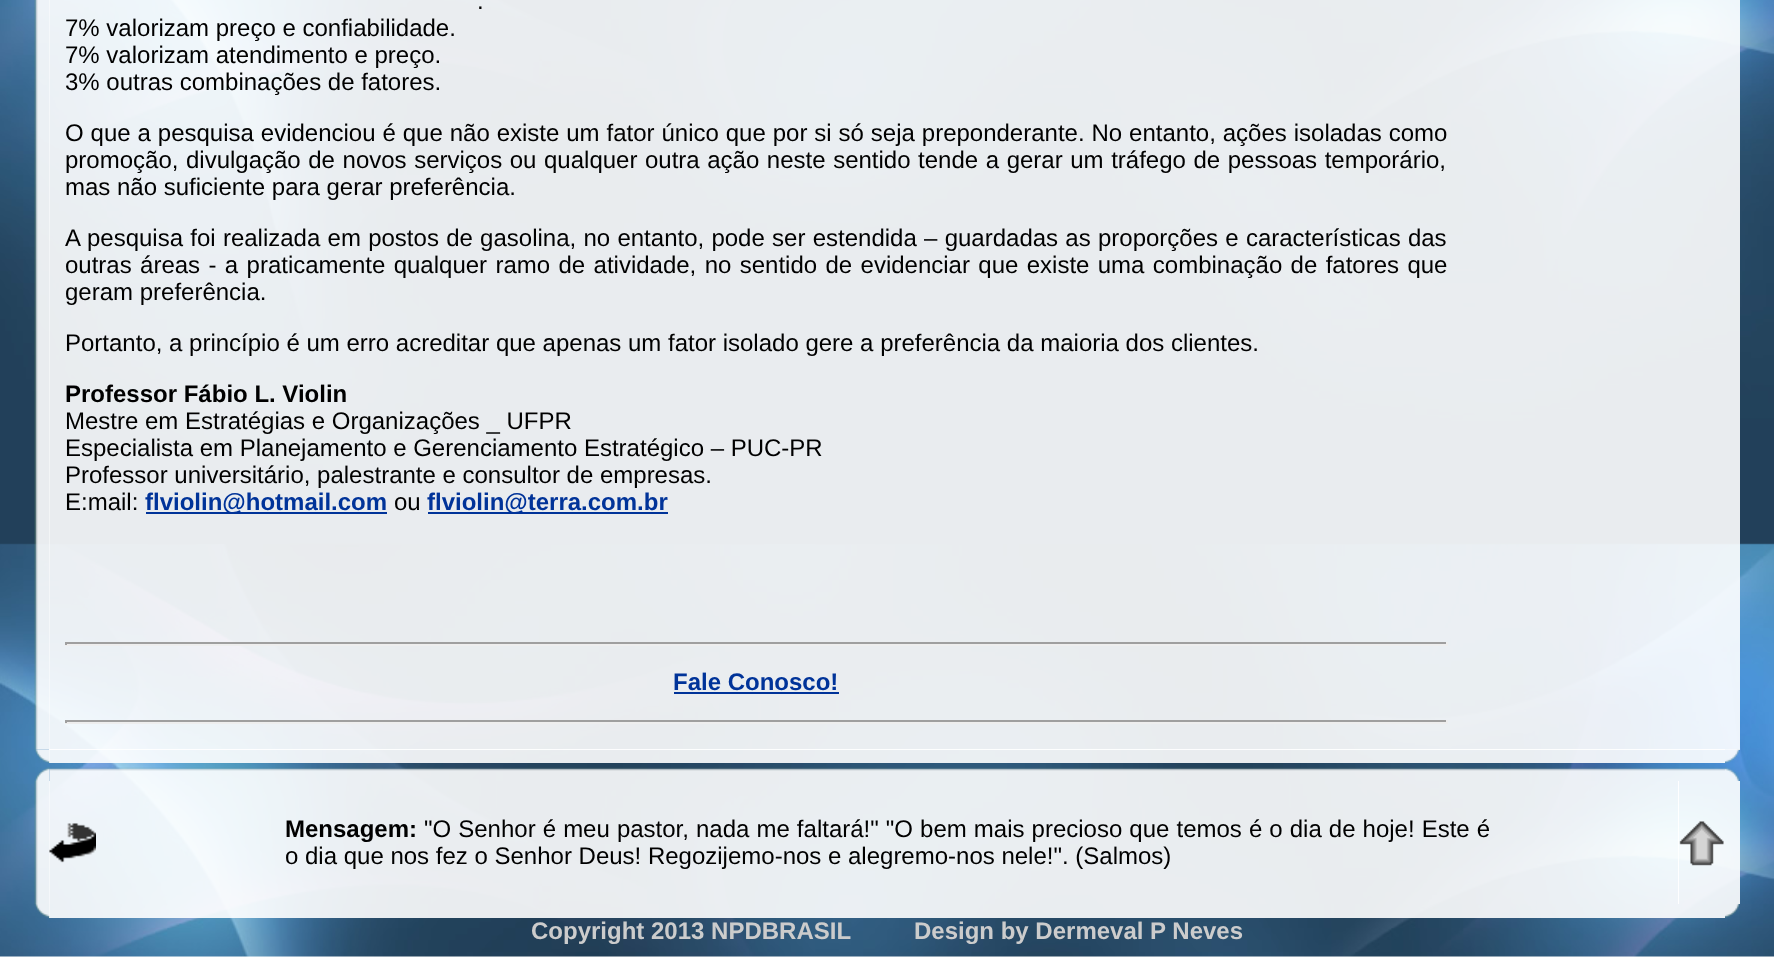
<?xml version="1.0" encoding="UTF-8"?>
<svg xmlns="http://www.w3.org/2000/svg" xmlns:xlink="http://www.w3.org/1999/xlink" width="1774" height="957">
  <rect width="100%" height="100%" fill="#ffffff" />
  <image x="0" y="0" width="1774" height="957" xlink:href="image1.png" />
  <image x="34" y="0" width="16" height="750" xlink:href="image2.png" />
  <rect x="49" width="1676" height="750" fill="#ffffff" fill-opacity="0.9" />
  <rect x="146" y="512" width="241" height="2" fill="#003399" />
  <rect x="428" y="512" width="240" height="2" fill="#003399" />
  <rect x="65" y="642" width="1383" height="2" fill="#9f9f9f" />
  <rect x="1446" y="642" width="2" height="3" fill="#eeeeee" />
  <rect x="65" y="644" width="1383" height="2" fill="#eeeeee" />
  <rect x="65" y="642" width="2" height="3" fill="#9f9f9f" />
  <rect x="674" y="692" width="165" height="2" fill="#003399" />
  <rect x="65" y="720" width="1383" height="2" fill="#9f9f9f" />
  <rect x="1446" y="720" width="2" height="3" fill="#eeeeee" />
  <rect x="65" y="722" width="1383" height="2" fill="#eeeeee" />
  <rect x="65" y="720" width="2" height="3" fill="#9f9f9f" />
  <rect x="1725" width="15" height="750" fill="#ffffff" fill-opacity="0.9" />
  <rect x="49" y="749" width="1676" height="14" fill="#ffffff" fill-opacity="0.9" />
  <image x="34" y="749" width="16" height="14" xlink:href="image3.png" />
  <image x="1725" y="749" width="15" height="14" xlink:href="image4.png" />
  <image x="49" y="767" width="1676" height="14" xlink:href="image6.png" />
  <image x="34" y="767" width="16" height="14" xlink:href="image5.png" />
  <image x="1725" y="767" width="15" height="14" xlink:href="image7.png" />
  <image x="34" y="781" width="16" height="123" xlink:href="image8.png" />
  <rect x="49" y="781" width="47" height="123" fill="#ffffff" fill-opacity="0.9" />
  <image x="49" y="823" width="47" height="40" xlink:href="image9.png" />
  <rect x="96" y="781" width="1583" height="123" fill="#ffffff" fill-opacity="0.9" />
  <rect x="1678" y="781" width="47" height="123" fill="#ffffff" fill-opacity="0.9" />
  <image x="1679" y="821" width="45" height="45" xlink:href="image10.png" />
  <rect x="1725" y="781" width="15" height="123" fill="#ffffff" fill-opacity="0.9" />
  <rect x="49" y="904" width="1676" height="14" fill="#ffffff" fill-opacity="0.9" />
  <image x="34" y="904" width="16" height="14" xlink:href="image11.png" />
  <image x="1725" y="904" width="15" height="14" xlink:href="image12.png" />
  <text x="477" y="9" style="font-family: Liberation Sans; font-size: 24px; fill: #000000">.</text>
  <text x="65" y="36" style="font-family: Liberation Sans; font-size: 24px; fill: #000000">7% valorizam preço e confiabilidade.</text>
  <text x="65" y="63" style="font-family: Liberation Sans; font-size: 24px; fill: #000000">7% valorizam atendimento e preço.</text>
  <text x="65" y="90" style="font-family: Liberation Sans; font-size: 24px; fill: #000000">3% outras combinações de fatores.</text>
  <text x="65" y="141" word-spacing="0.25" style="font-family: Liberation Sans; font-size: 24px; fill: #000000">O que a pesquisa evidenciou é que não existe um fator único que por si só seja preponderante. No entanto, ações isoladas como</text>
  <text x="65" y="168" word-spacing="0.9" style="font-family: Liberation Sans; font-size: 24px; fill: #000000">promoção, divulgação de novos serviços ou qualquer outra ação neste sentido tende a gerar um tráfego de pessoas temporário,</text>
  <text x="65" y="195" style="font-family: Liberation Sans; font-size: 24px; fill: #000000">mas não suficiente para gerar preferência.</text>
  <text x="65" y="246" word-spacing="0.6" style="font-family: Liberation Sans; font-size: 24px; fill: #000000">A pesquisa foi realizada em postos de gasolina, no entanto, pode ser estendida – guardadas as proporções e características das</text>
  <text x="65" y="273" word-spacing="1.7" style="font-family: Liberation Sans; font-size: 24px; fill: #000000">outras áreas - a praticamente qualquer ramo de atividade, no sentido de evidenciar que existe uma combinação de fatores que</text>
  <text x="65" y="300" style="font-family: Liberation Sans; font-size: 24px; fill: #000000">geram preferência.</text>
  <text x="65" y="351" style="font-family: Liberation Sans; font-size: 24px; fill: #000000">Portanto, a princípio é um erro acreditar que apenas um fator isolado gere a preferência da maioria dos clientes.</text>
  <text x="65" y="402" style="font-family: Liberation Sans; font-size: 24px; font-weight: bold; fill: #000000">Professor Fábio L. Violin</text>
  <text x="65" y="429" style="font-family: Liberation Sans; font-size: 24px; fill: #000000">Mestre em Estratégias e Organizações _ UFPR</text>
  <text x="65" y="456" style="font-family: Liberation Sans; font-size: 24px; fill: #000000">Especialista em Planejamento e Gerenciamento Estratégico – PUC-PR</text>
  <text x="65" y="483" style="font-family: Liberation Sans; font-size: 24px; fill: #000000">Professor universitário, palestrante e consultor de empresas.</text>
  <text x="65" y="510" style="font-family: Liberation Sans; font-size: 24px; fill: #000000">E:mail:</text>
  <text x="145" y="510" style="font-family: Liberation Sans; font-size: 24px; font-weight: bold; fill: #003399">flviolin@hotmail.com</text>
  <text x="394" y="510" style="font-family: Liberation Sans; font-size: 24px; fill: #000000">ou</text>
  <text x="427" y="510" style="font-family: Liberation Sans; font-size: 24px; font-weight: bold; fill: #003399">flviolin@terra.com.br</text>
  <text x="673" y="690" style="font-family: Liberation Sans; font-size: 24px; font-weight: bold; fill: #003399">Fale Conosco!</text>
  <text x="285" y="837" style="font-family: Liberation Sans; font-size: 24px; font-weight: bold; fill: #000000">Mensagem:</text>
  <text x="424" y="837" word-spacing="0.4" style="font-family: Liberation Sans; font-size: 24px; fill: #000000">"O Senhor é meu pastor, nada me faltará!" "O bem mais precioso que temos é o dia de hoje! Este é</text>
  <text x="285" y="864" style="font-family: Liberation Sans; font-size: 24px; fill: #000000">o dia que nos fez o Senhor Deus! Regozijemo-nos e alegremo-nos nele!". (Salmos)</text>
  <text x="531" y="939" style="font-family: Liberation Sans; font-size: 24px; font-weight: bold; fill: #cccccc">Copyright 2013 NPDBRASIL</text>
  <text x="914" y="939" style="font-family: Liberation Sans; font-size: 24px; font-weight: bold; fill: #cccccc">Design by Dermeval P Neves</text>
</svg>
